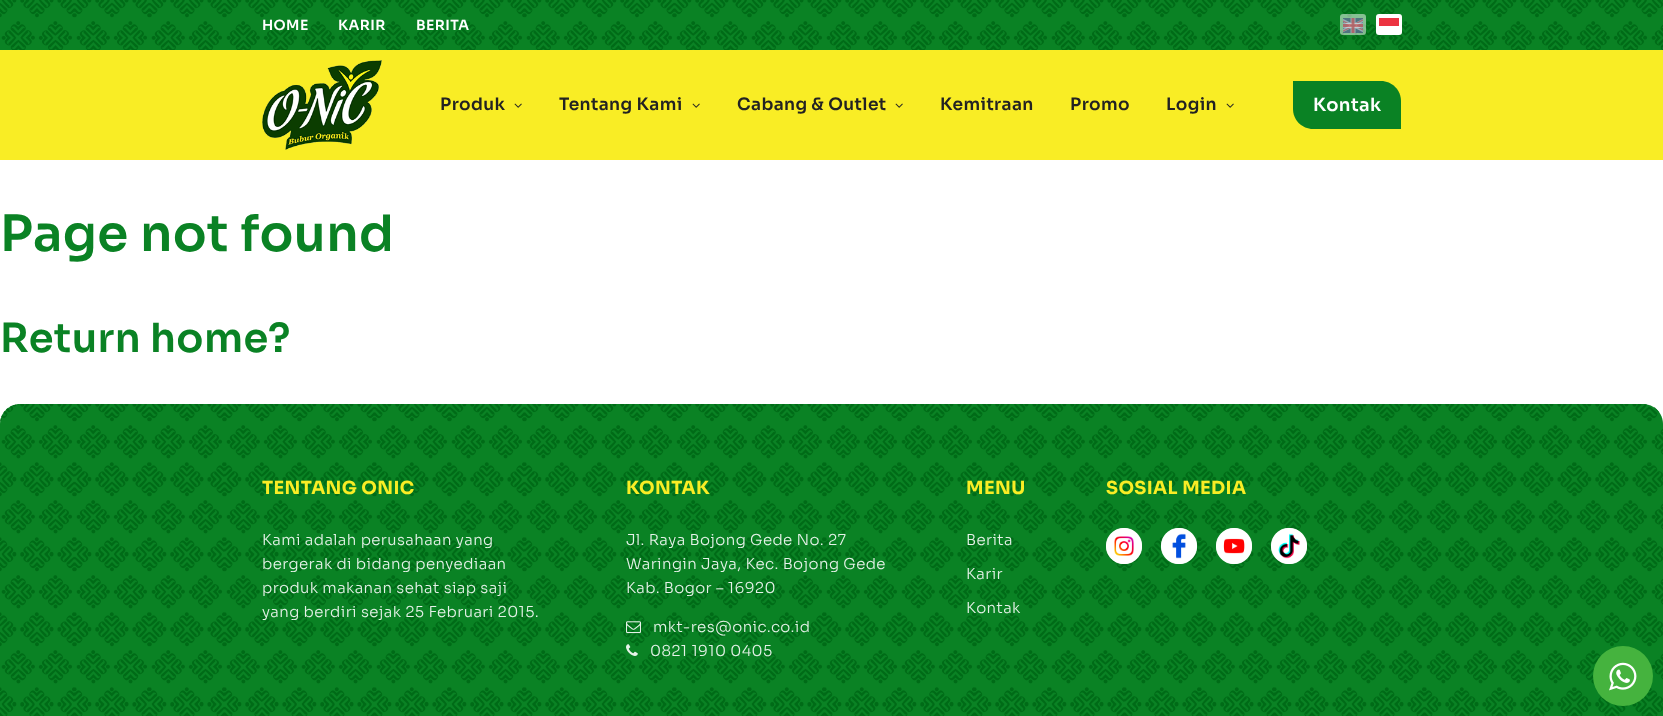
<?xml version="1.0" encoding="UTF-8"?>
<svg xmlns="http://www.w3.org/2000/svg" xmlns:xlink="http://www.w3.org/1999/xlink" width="1663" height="716">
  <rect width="100%" height="100%" fill="#ffffff" />
  <rect width="1663" height="50" fill="#0a8224" />
  <image x="0" y="0" width="1663" height="50" xlink:href="image1.png" />
  <rect x="1340" y="14" width="26" height="21" rx="3" fill="#ffffff" fill-opacity="0.5" />
  <rect x="1376" y="14" width="26" height="21" rx="3" fill="#ffffff" />
  <image x="1343" y="18" width="20" height="15" xlink:href="image2.png" />
  <rect x="1379" y="18" width="20" height="8" fill="#ec3341" />
  <rect y="50" width="1663" height="110" fill="#f9ed25" />
  <image x="262" y="60" width="120" height="90" xlink:href="image3.png" />
  <image x="514" y="103" width="8" height="5" xlink:href="image4.png" />
  <image x="692" y="103" width="8" height="5" xlink:href="image4.png" />
  <image x="895" y="103" width="8" height="5" xlink:href="image4.png" />
  <image x="1226" y="103" width="8" height="5" xlink:href="image4.png" />
  <path d="M 1293 81 h 88 c 11 0 20 9 20 20 v 28 h -88 c -11 0 -20 -9 -20 -20 z" fill="#0a8224" />
  <path d="M 20 404 h 1623 c 11 0 20 9 20 20 v 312 h -1663 v -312 c 0 -11 9 -20 20 -20 z" fill="#0a8224" />
  <image x="0" y="404" width="1663" height="312" xlink:href="image5.png" />
  <image x="626" y="621" width="15" height="13" xlink:href="image6.png" />
  <image x="626" y="644" width="12" height="12" xlink:href="image7.png" />
  <circle cx="1124" cy="546" r="18" fill="#ffffff" fill-opacity="0.9" />
  <image x="1106" y="528" width="36" height="36" xlink:href="image8.png" />
  <circle cx="1179" cy="546" r="18" fill="#ffffff" fill-opacity="0.9" />
  <image x="1161" y="528" width="36" height="36" xlink:href="image9.png" />
  <circle cx="1234" cy="546" r="18" fill="#ffffff" fill-opacity="0.9" />
  <image x="1216" y="528" width="36" height="36" xlink:href="image10.png" />
  <circle cx="1289" cy="546" r="18" fill="#ffffff" fill-opacity="0.9" />
  <image x="1271" y="528" width="36" height="36" xlink:href="image11.png" />
  <circle cx="1623" cy="676" r="30" fill="#45b33e" />
  <image x="1609" y="662" width="28" height="29" xlink:href="image12.png" />
  <text x="262" y="30" style="font-family: Sora; font-size: 14px; font-weight: 600; letter-spacing: 0.4px; fill: #ffffff">HOME</text>
  <text x="338" y="30" style="font-family: Sora; font-size: 14px; font-weight: 600; letter-spacing: 0.4px; fill: #ffffff">KARIR</text>
  <text x="416" y="30" style="font-family: Sora; font-size: 14px; font-weight: 600; letter-spacing: 0.4px; fill: #ffffff">BERITA</text>
  <text x="440" y="110" style="font-family: Sora; font-size: 17px; font-weight: 600; letter-spacing: 0.4px; fill: #222222">Produk</text>
  <text x="559" y="110" style="font-family: Sora; font-size: 17px; font-weight: 600; letter-spacing: 0.4px; fill: #222222">Tentang Kami</text>
  <text x="737" y="110" style="font-family: Sora; font-size: 17px; font-weight: 600; letter-spacing: 0.4px; fill: #222222">Cabang &amp; Outlet</text>
  <text x="940" y="110" style="font-family: Sora; font-size: 17px; font-weight: 600; letter-spacing: 0.4px; fill: #222222">Kemitraan</text>
  <text x="1070" y="110" style="font-family: Sora; font-size: 17px; font-weight: 600; letter-spacing: 0.4px; fill: #222222">Promo</text>
  <text x="1166" y="110" style="font-family: Sora; font-size: 17px; font-weight: 600; letter-spacing: 0.4px; fill: #222222">Login</text>
  <text x="1313" y="111" style="font-family: Sora; font-size: 18px; font-weight: 600; letter-spacing: 0.4px; fill: #ffffff">Kontak</text>
  <text x="0" y="251" style="font-family: Sora; font-size: 50px; font-weight: 600; letter-spacing: 0.4px; fill: #0a8224">Page not found</text>
  <text x="0" y="352" style="font-family: Sora; font-size: 40px; font-weight: 600; letter-spacing: 0.4px; fill: #0a8224">Return home?</text>
  <text x="262" y="494" style="font-family: Sora; font-size: 18px; font-weight: bold; letter-spacing: 0.4px; fill: #f9ed25">TENTANG ONIC</text>
  <text x="262" y="545" style="font-family: Sora; font-size: 15px; font-weight: 300; letter-spacing: 0.4px; fill: #e6f2e9">Kami adalah perusahaan yang</text>
  <text x="262" y="569" style="font-family: Sora; font-size: 15px; font-weight: 300; letter-spacing: 0.4px; fill: #e6f2e9">bergerak di bidang penyediaan</text>
  <text x="262" y="593" style="font-family: Sora; font-size: 15px; font-weight: 300; letter-spacing: 0.4px; fill: #e6f2e9">produk makanan sehat siap saji</text>
  <text x="262" y="617" style="font-family: Sora; font-size: 15px; font-weight: 300; letter-spacing: 0.4px; fill: #e6f2e9">yang berdiri sejak 25 Februari 2015.</text>
  <text x="626" y="494" style="font-family: Sora; font-size: 18px; font-weight: bold; letter-spacing: 0.4px; fill: #f9ed25">KONTAK</text>
  <text x="626" y="545" style="font-family: Sora; font-size: 15px; font-weight: 300; letter-spacing: 0.4px; fill: #e6f2e9">Jl. Raya Bojong Gede No. 27</text>
  <text x="626" y="569" style="font-family: Sora; font-size: 15px; font-weight: 300; letter-spacing: 0.4px; fill: #e6f2e9">Waringin Jaya, Kec. Bojong Gede</text>
  <text x="626" y="593" style="font-family: Sora; font-size: 15px; font-weight: 300; letter-spacing: 0.4px; fill: #e6f2e9">Kab. Bogor – 16920</text>
  <text x="653" y="632" style="font-family: Sora; font-size: 15px; font-weight: 300; letter-spacing: 0.4px; fill: #e6f2e9">mkt-res@onic.co.id</text>
  <text x="650" y="656" style="font-family: Sora; font-size: 15px; font-weight: 300; letter-spacing: 0.4px; fill: #e6f2e9">0821 1910 0405</text>
  <text x="966" y="494" style="font-family: Sora; font-size: 18px; font-weight: bold; letter-spacing: 0.4px; fill: #f9ed25">MENU</text>
  <text x="966" y="545" style="font-family: Sora; font-size: 15px; font-weight: 300; letter-spacing: 0.4px; fill: #e6f2e9">Berita</text>
  <text x="966" y="579" style="font-family: Sora; font-size: 15px; font-weight: 300; letter-spacing: 0.4px; fill: #e6f2e9">Karir</text>
  <text x="966" y="613" style="font-family: Sora; font-size: 15px; font-weight: 300; letter-spacing: 0.4px; fill: #e6f2e9">Kontak</text>
  <text x="1106" y="494" style="font-family: Sora; font-size: 18px; font-weight: bold; letter-spacing: 0.4px; fill: #f9ed25">SOSIAL MEDIA</text>
</svg>
